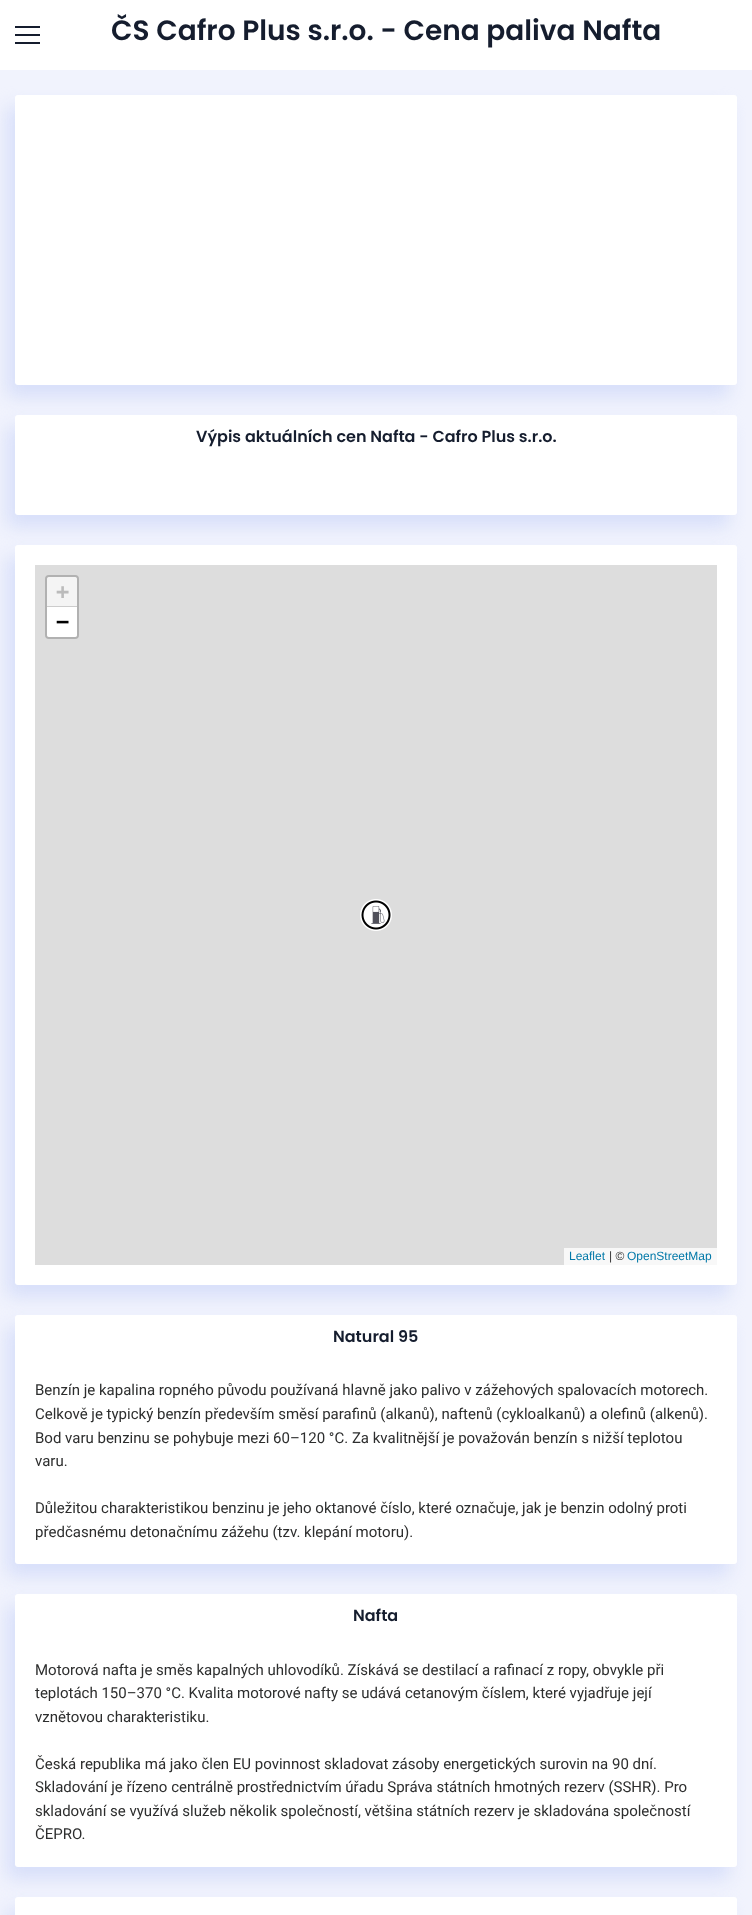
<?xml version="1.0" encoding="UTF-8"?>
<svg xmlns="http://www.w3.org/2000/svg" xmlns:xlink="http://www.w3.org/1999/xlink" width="752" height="1915">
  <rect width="100%" height="100%" fill="#f1f3fd" />
  <rect width="752" height="70" fill="#ffffff" />
  <rect x="15" y="26" width="25" height="2" fill="#151d2e" />
  <rect x="15" y="42" width="25" height="2" fill="#151d2e" />
  <rect x="15" y="34" width="25" height="2" fill="#151d2e" />
  <rect x="7" y="107" width="722" height="290" rx="3" fill="#d1daf9" fill-opacity="0.8" filter="blur(9px)" />
  <rect x="15" y="95" width="722" height="290" rx="3" fill="#ffffff" />
  <rect x="7" y="427" width="722" height="100" rx="3" fill="#d1daf9" fill-opacity="0.8" filter="blur(9px)" />
  <rect x="15" y="415" width="722" height="100" rx="3" fill="#ffffff" />
  <rect x="7" y="557" width="722" height="740" rx="3" fill="#d1daf9" fill-opacity="0.8" filter="blur(9px)" />
  <rect x="15" y="545" width="722" height="740" rx="3" fill="#ffffff" />
  <rect x="35" y="565" width="682" height="700" fill="#dddddd" />
  <rect x="46" y="576" width="32" height="62" rx="3" fill="none" stroke="#b1b1b1" stroke-width="2" />
  <path d="M 49 577 h 26 c 1 0 2 1 2 2 v 28 h -30 v -28 c 0 -1 1 -2 2 -2 z" fill="#f4f4f4" />
  <rect x="47" y="606" width="30" height="1" fill="#cccccc" />
  <path d="M 47 607 h 30 v 28 c 0 1 -1 2 -2 2 h -26 c -1 0 -2 -1 -2 -2 z" fill="#ffffff" />
  <rect x="564" y="1248" width="153" height="17" fill="#f8f8f8" />
  <image x="360" y="899" width="32" height="32" xlink:href="image1.png" />
  <rect x="7" y="1327" width="722" height="249" rx="3" fill="#d1daf9" fill-opacity="0.8" filter="blur(9px)" />
  <rect x="15" y="1315" width="722" height="249" rx="3" fill="#ffffff" />
  <rect x="7" y="1606" width="722" height="273" rx="3" fill="#d1daf9" fill-opacity="0.8" filter="blur(9px)" />
  <rect x="15" y="1594" width="722" height="273" rx="3" fill="#ffffff" />
  <rect x="7" y="1909" width="722" height="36" rx="3" fill="#d1daf9" fill-opacity="0.8" filter="blur(9px)" />
  <rect x="15" y="1897" width="722" height="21" rx="3" fill="#ffffff" />
  <text x="111" y="40" style="font-family: Poppins; font-size: 28px; font-weight: 600; fill: #151d2e">ČS Cafro Plus s.r.o. - Cena paliva Nafta</text>
  <text x="196" y="442" style="font-family: Poppins; font-size: 16px; font-weight: 600; fill: #151d2e">Výpis aktuálních cen Nafta - Cafro Plus s.r.o.</text>
  <text x="56" y="599" style="font-family: DejaVu Sans Mono; font-size: 22px; font-weight: bold; fill: #bbbbbb">+</text>
  <text x="56" y="629" style="font-family: DejaVu Sans Mono; font-size: 22px; font-weight: bold; fill: #000000">−</text>
  <text x="569" y="1260" style="font-family: Liberation Sans; font-size: 12px; fill: #0078a8">Leaflet</text>
  <text x="609" y="1260" style="font-family: Liberation Sans; font-size: 12px; fill: #333333">| ©</text>
  <text x="627" y="1260" style="font-family: Liberation Sans; font-size: 12px; fill: #0078a8">OpenStreetMap</text>
  <text x="333" y="1342" style="font-family: Poppins; font-size: 16px; font-weight: 600; fill: #151d2e">Natural 95</text>
  <text x="35" y="1395" style="font-family: Roboto; font-size: 15px; fill: #2d2e2e">Benzín je kapalina ropného původu používaná hlavně jako palivo v zážehových spalovacích motorech.</text>
  <text x="35" y="1419" style="font-family: Roboto; font-size: 15px; fill: #2d2e2e">Celkově je typický benzín především směsí parafinů (alkanů), naftenů (cykloalkanů) a olefinů (alkenů).</text>
  <text x="35" y="1443" style="font-family: Roboto; font-size: 15px; fill: #2d2e2e">Bod varu benzinu se pohybuje mezi 60–120 °C. Za kvalitnější je považován benzín s nižší teplotou</text>
  <text x="35" y="1466" style="font-family: Roboto; font-size: 15px; fill: #2d2e2e">varu.</text>
  <text x="35" y="1513" style="font-family: Roboto; font-size: 15px; fill: #2d2e2e">Důležitou charakteristikou benzinu je jeho oktanové číslo, které označuje, jak je benzin odolný proti</text>
  <text x="35" y="1537" style="font-family: Roboto; font-size: 15px; fill: #2d2e2e">předčasnému detonačnímu zážehu (tzv. klepání motoru).</text>
  <text x="353" y="1621" style="font-family: Poppins; font-size: 16px; font-weight: 600; fill: #151d2e">Nafta</text>
  <text x="35" y="1675" style="font-family: Roboto; font-size: 15px; fill: #2d2e2e">Motorová nafta je směs kapalných uhlovodíků. Získává se destilací a rafinací z ropy, obvykle při</text>
  <text x="35" y="1698" style="font-family: Roboto; font-size: 15px; fill: #2d2e2e">teplotách 150–370 °C. Kvalita motorové nafty se udává cetanovým číslem, které vyjadřuje její</text>
  <text x="35" y="1722" style="font-family: Roboto; font-size: 15px; fill: #2d2e2e">vznětovou charakteristiku.</text>
  <text x="35" y="1769" style="font-family: Roboto; font-size: 15px; fill: #2d2e2e">Česká republika má jako člen EU povinnost skladovat zásoby energetických surovin na 90 dní.</text>
  <text x="35" y="1792" style="font-family: Roboto; font-size: 15px; fill: #2d2e2e">Skladování je řízeno centrálně prostřednictvím úřadu Správa státních hmotných rezerv (SSHR). Pro</text>
  <text x="35" y="1816" style="font-family: Roboto; font-size: 15px; fill: #2d2e2e">skladování se využívá služeb několik společností, většina státních rezerv je skladována společností</text>
  <text x="35" y="1839" style="font-family: Roboto; font-size: 15px; fill: #2d2e2e">ČEPRO.</text>
</svg>
